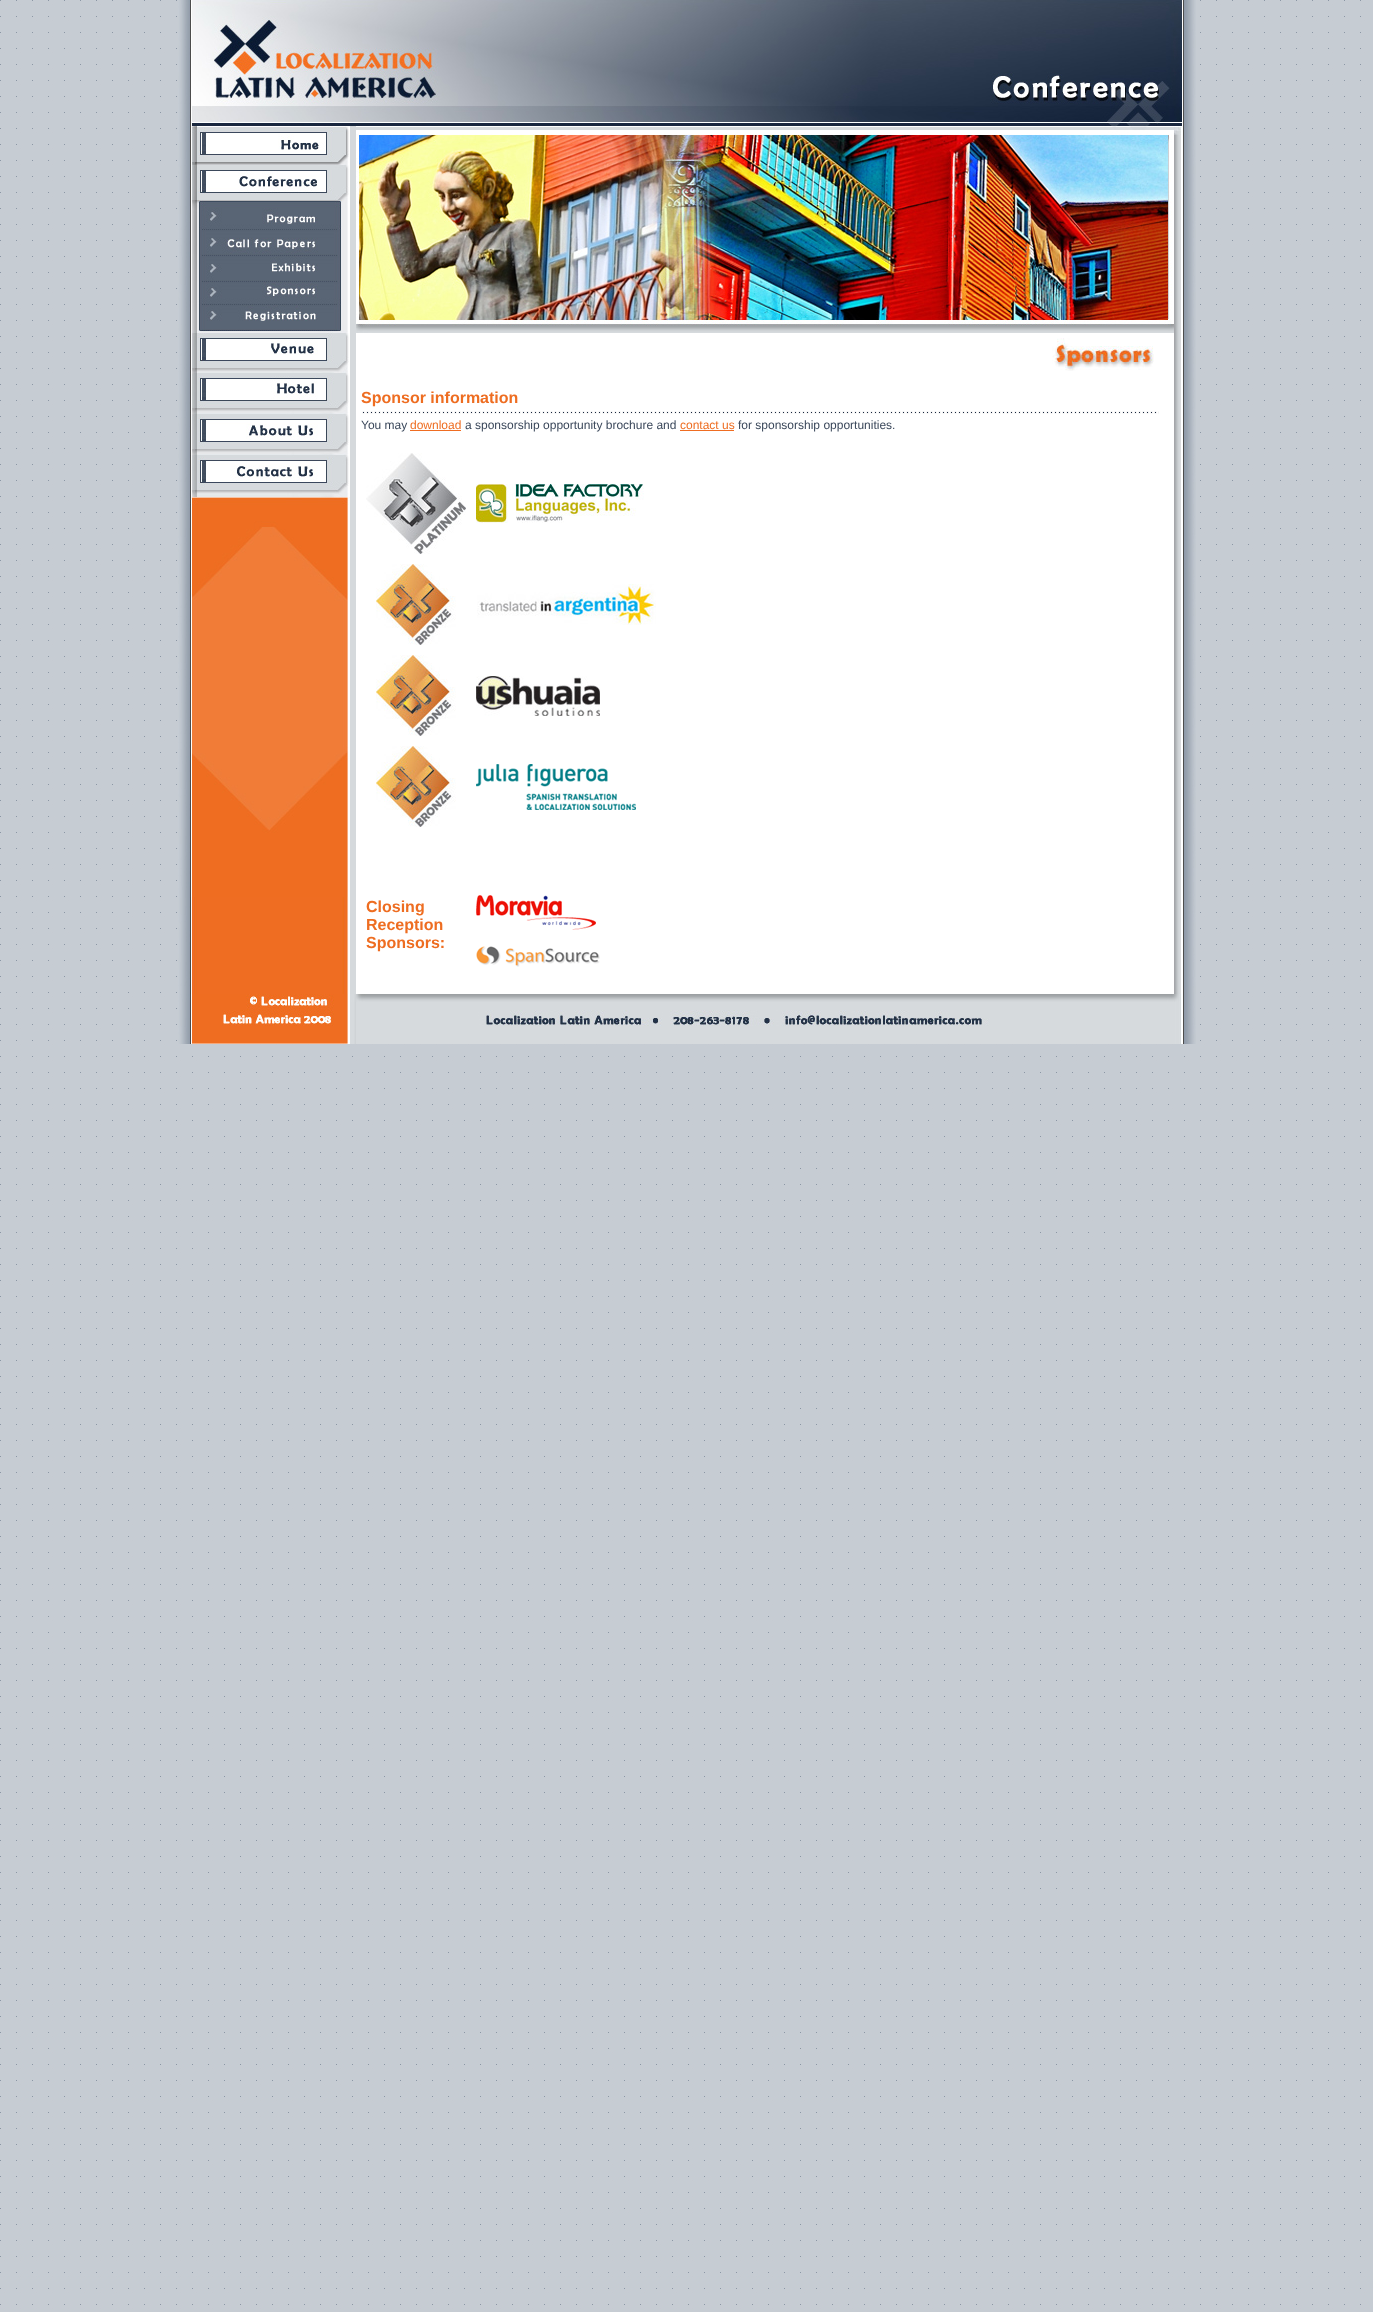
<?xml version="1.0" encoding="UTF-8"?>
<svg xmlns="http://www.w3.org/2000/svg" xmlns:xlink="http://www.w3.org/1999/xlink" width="1373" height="2312">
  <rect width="100%" height="100%" fill="#ffffff" />
  <image x="0" y="0" width="1373" height="2312" xlink:href="image1.png" />
  <rect x="349" y="126" width="825" height="868" fill="#ffffff" />
  <image x="178" y="0" width="12" height="126" xlink:href="image2.png" />
  <image x="190" y="0" width="994" height="126" xlink:href="image3.png" />
  <image x="1184" y="0" width="12" height="126" xlink:href="image4.png" />
  <image x="178" y="126" width="12" height="868" xlink:href="image5.png" />
  <image x="190" y="897" width="159" height="97" xlink:href="image6.png" />
  <image x="190" y="126" width="159" height="36" xlink:href="image7.png" />
  <image x="190" y="162" width="159" height="38" xlink:href="image8.png" />
  <image x="190" y="200" width="159" height="30" xlink:href="image9.png" />
  <image x="190" y="230" width="159" height="26" xlink:href="image10.png" />
  <image x="190" y="256" width="159" height="26" xlink:href="image11.png" />
  <image x="190" y="282" width="159" height="23" xlink:href="image12.png" />
  <image x="190" y="305" width="159" height="26" xlink:href="image13.png" />
  <image x="190" y="331" width="159" height="37" xlink:href="image14.png" />
  <image x="190" y="368" width="159" height="40" xlink:href="image15.png" />
  <image x="190" y="408" width="159" height="41" xlink:href="image16.png" />
  <image x="190" y="449" width="159" height="48" xlink:href="image17.png" />
  <image x="190" y="497" width="160" height="400" xlink:href="image18.png" />
  <rect x="350" y="126" width="6" height="868" fill="#d5d9dc" />
  <image x="356" y="126" width="818" height="207" xlink:href="image19.png" />
  <image x="1052" y="338" width="102" height="33" xlink:href="image20.png" />
  <image x="362" y="411" width="797" height="3" xlink:href="image21.png" />
  <rect x="410" y="430" width="51" height="1" fill="#ef6d22" />
  <rect x="680" y="430" width="54" height="1" fill="#ef6d22" />
  <image x="366" y="453" width="100" height="101" xlink:href="image22.png" />
  <image x="476" y="484" width="168" height="39" xlink:href="image23.png" />
  <image x="376" y="564" width="80" height="81" xlink:href="image24.png" />
  <image x="477" y="584" width="179" height="41" xlink:href="image25.png" />
  <image x="376" y="655" width="80" height="81" xlink:href="image24.png" />
  <image x="476" y="676" width="124" height="40" xlink:href="image26.png" />
  <image x="376" y="746" width="80" height="81" xlink:href="image24.png" />
  <image x="476" y="764" width="160" height="46" xlink:href="image27.png" />
  <image x="476" y="895" width="120" height="35" xlink:href="image28.png" />
  <image x="476" y="946" width="124" height="21" xlink:href="image29.png" />
  <image x="1174" y="126" width="10" height="868" xlink:href="image30.png" />
  <image x="1174" y="126" width="8" height="9" xlink:href="image31.png" />
  <image x="1184" y="126" width="12" height="868" xlink:href="image32.png" />
  <image x="178" y="994" width="12" height="50" xlink:href="image33.png" />
  <image x="190" y="994" width="984" height="50" xlink:href="image34.png" />
  <image x="1174" y="994" width="10" height="50" xlink:href="image35.png" />
  <image x="1184" y="994" width="12" height="50" xlink:href="image36.png" />
  <text x="361" y="403" style="font-family: Liberation Sans; font-size: 16px; font-weight: bold; fill: #ee6d21">Sponsor information</text>
  <text x="361" y="429" style="font-family: Liberation Sans; font-size: 12px; fill: #3b485b">You may</text>
  <text x="410" y="429" style="font-family: Liberation Sans; font-size: 12px; fill: #ee6d21">download</text>
  <text x="465" y="429" style="font-family: Liberation Sans; font-size: 12px; fill: #3b485b">a sponsorship opportunity brochure and</text>
  <text x="680" y="429" style="font-family: Liberation Sans; font-size: 12px; fill: #ee6d21">contact us</text>
  <text x="738" y="429" style="font-family: Liberation Sans; font-size: 12px; fill: #3b485b">for sponsorship opportunities.</text>
  <text x="366" y="912" style="font-family: Liberation Sans; font-size: 16px; font-weight: bold; fill: #ee6d21">Closing</text>
  <text x="366" y="930" style="font-family: Liberation Sans; font-size: 16px; font-weight: bold; fill: #ee6d21">Reception</text>
  <text x="366" y="948" style="font-family: Liberation Sans; font-size: 16px; font-weight: bold; fill: #ee6d21">Sponsors:</text>
</svg>
